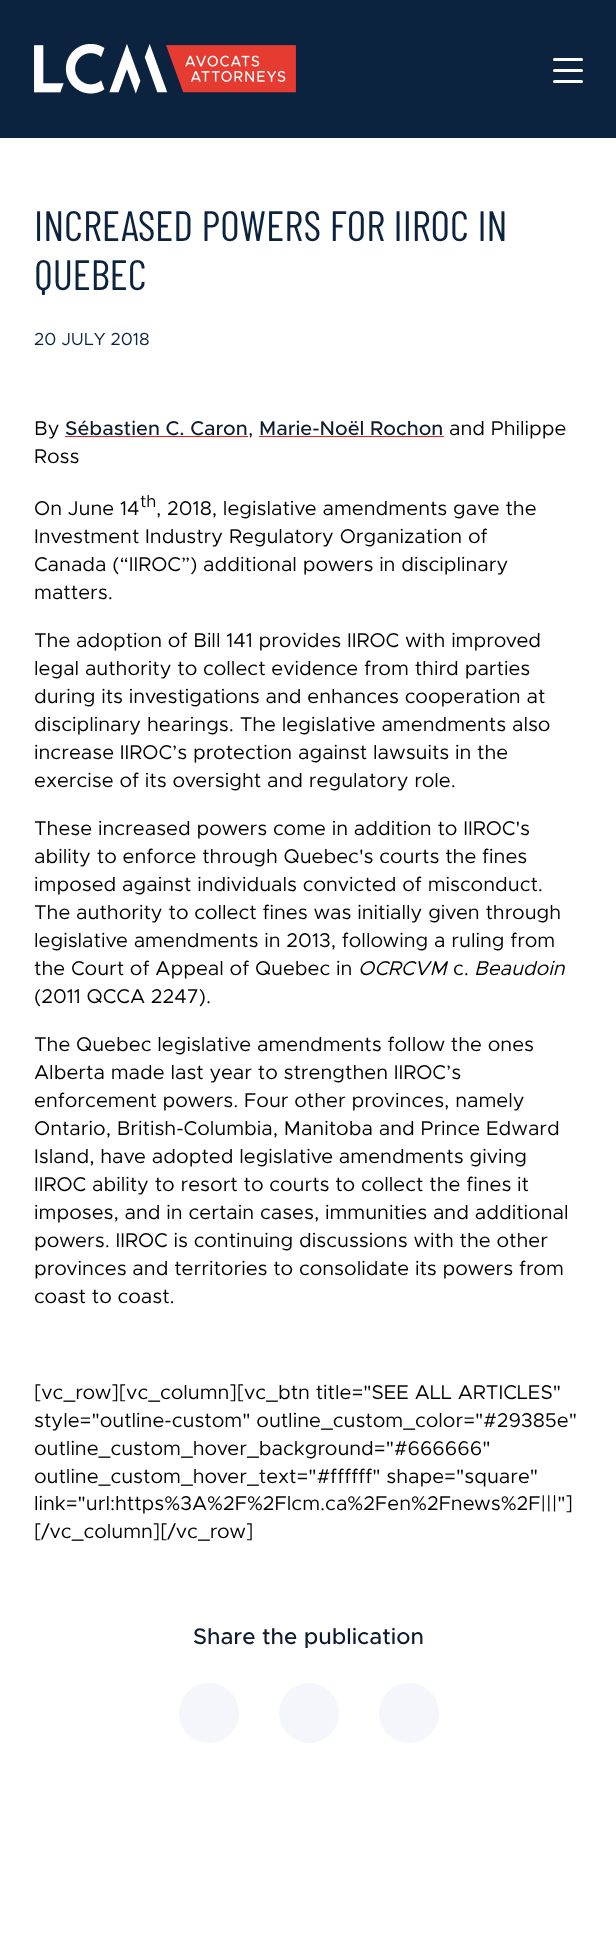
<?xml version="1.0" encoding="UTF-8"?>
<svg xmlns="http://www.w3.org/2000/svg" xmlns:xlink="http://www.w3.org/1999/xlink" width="616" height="1945">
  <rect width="100%" height="100%" fill="#ffffff" />
  <rect width="616" height="138" fill="#0c2340" />
  <image x="34" y="44" width="262" height="50" xlink:href="image1.png" />
  <rect x="553" y="58" width="30" height="3" rx="1.5" fill="#ffffff" />
  <rect x="553" y="69" width="30" height="3" rx="1.5" fill="#ffffff" />
  <rect x="553" y="80" width="30" height="3" rx="1.5" fill="#ffffff" />
  <rect x="65" y="436" width="183" height="1" fill="#e51f1f" />
  <rect x="259" y="436" width="185" height="1" fill="#e51f1f" />
  <circle cx="209" cy="1713" r="30" fill="#f4f6fb" />
  <circle cx="309" cy="1713" r="30" fill="#f4f6fb" />
  <circle cx="409" cy="1713" r="30" fill="#f4f6fb" />
  <text x="34" y="241" style="font-family: Barlow Condensed; font-size: 42.5px; fill: #0c2340">INCREASED POWERS FOR IIROC IN</text>
  <text x="34" y="290" style="font-family: Barlow Condensed; font-size: 42.5px; fill: #0c2340">QUEBEC</text>
  <text x="34" y="345" style="font-family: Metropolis; font-size: 17.5px; fill: #0c2340">20 JULY 2018</text>
  <text x="34" y="435" style="font-family: Metropolis; font-size: 20px; fill: #000000">By</text>
  <text x="65" y="435" style="font-family: Metropolis; font-size: 20px; font-weight: 500; fill: #0f1a2e">Sébastien C. Caron</text>
  <text x="248" y="435" style="font-family: Metropolis; font-size: 20px; fill: #000000">,</text>
  <text x="259" y="435" style="font-family: Metropolis; font-size: 20px; font-weight: 500; fill: #0f1a2e">Marie-Noël Rochon</text>
  <text x="449" y="435" style="font-family: Metropolis; font-size: 20px; fill: #000000">and Philippe</text>
  <text x="34" y="463" style="font-family: Metropolis; font-size: 20px; fill: #000000">Ross</text>
  <text x="34" y="515" style="font-family: Metropolis; font-size: 20px; fill: #000000">On June 14</text>
  <text x="140" y="507" style="font-family: Metropolis; font-size: 17px; fill: #000000">th</text>
  <text x="156" y="515" style="font-family: Metropolis; font-size: 20px; fill: #000000">, 2018, legislative amendments gave the</text>
  <text x="34" y="543" style="font-family: Metropolis; font-size: 20px; fill: #000000">Investment Industry Regulatory Organization of</text>
  <text x="34" y="571" style="font-family: Metropolis; font-size: 20px; fill: #000000">Canada (“IIROC”) additional powers in disciplinary</text>
  <text x="34" y="599" style="font-family: Metropolis; font-size: 20px; fill: #000000">matters.</text>
  <text x="34" y="647" style="font-family: Metropolis; font-size: 20px; fill: #000000">The adoption of Bill 141 provides IIROC with improved</text>
  <text x="34" y="675" style="font-family: Metropolis; font-size: 20px; fill: #000000">legal authority to collect evidence from third parties</text>
  <text x="34" y="703" style="font-family: Metropolis; font-size: 20px; fill: #000000">during its investigations and enhances cooperation at</text>
  <text x="34" y="731" style="font-family: Metropolis; font-size: 20px; fill: #000000">disciplinary hearings. The legislative amendments also</text>
  <text x="34" y="759" style="font-family: Metropolis; font-size: 20px; fill: #000000">increase IIROC’s protection against lawsuits in the</text>
  <text x="34" y="787" style="font-family: Metropolis; font-size: 20px; fill: #000000">exercise of its oversight and regulatory role.</text>
  <text x="34" y="835" style="font-family: Metropolis; font-size: 20px; fill: #000000">These increased powers come in addition to IIROC's</text>
  <text x="34" y="863" style="font-family: Metropolis; font-size: 20px; fill: #000000">ability to enforce through Quebec's courts the fines</text>
  <text x="34" y="891" style="font-family: Metropolis; font-size: 20px; fill: #000000">imposed against individuals convicted of misconduct.</text>
  <text x="34" y="919" style="font-family: Metropolis; font-size: 20px; fill: #000000">The authority to collect fines was initially given through</text>
  <text x="34" y="947" style="font-family: Metropolis; font-size: 20px; fill: #000000">legislative amendments in 2013, following a ruling from</text>
  <text x="34" y="975" style="font-family: Metropolis; font-size: 20px; fill: #000000">the Court of Appeal of Quebec in</text>
  <text x="358" y="975" style="font-family: Metropolis; font-size: 20px; font-style: italic; fill: #000000">OCRCVM</text>
  <text x="453" y="975" style="font-family: Metropolis; font-size: 20px; fill: #000000">c.</text>
  <text x="474" y="975" style="font-family: Metropolis; font-size: 20px; font-style: italic; fill: #000000">Beaudoin</text>
  <text x="34" y="1003" style="font-family: Metropolis; font-size: 20px; fill: #000000">(2011 QCCA 2247).</text>
  <text x="34" y="1051" style="font-family: Metropolis; font-size: 20px; fill: #000000">The Quebec legislative amendments follow the ones</text>
  <text x="34" y="1079" style="font-family: Metropolis; font-size: 20px; fill: #000000">Alberta made last year to strengthen IIROC’s</text>
  <text x="34" y="1107" style="font-family: Metropolis; font-size: 20px; fill: #000000">enforcement powers. Four other provinces, namely</text>
  <text x="34" y="1135" style="font-family: Metropolis; font-size: 20px; fill: #000000">Ontario, British-Columbia, Manitoba and Prince Edward</text>
  <text x="34" y="1163" style="font-family: Metropolis; font-size: 20px; fill: #000000">Island, have adopted legislative amendments giving</text>
  <text x="34" y="1191" style="font-family: Metropolis; font-size: 20px; fill: #000000">IIROC ability to resort to courts to collect the fines it</text>
  <text x="34" y="1219" style="font-family: Metropolis; font-size: 20px; fill: #000000">imposes, and in certain cases, immunities and additional</text>
  <text x="34" y="1247" style="font-family: Metropolis; font-size: 20px; fill: #000000">powers. IIROC is continuing discussions with the other</text>
  <text x="34" y="1275" style="font-family: Metropolis; font-size: 20px; fill: #000000">provinces and territories to consolidate its powers from</text>
  <text x="34" y="1303" style="font-family: Metropolis; font-size: 20px; fill: #000000">coast to coast.</text>
  <text x="34" y="1399" style="font-family: Metropolis; font-size: 20px; fill: #000000">[vc_row][vc_column][vc_btn title="SEE ALL ARTICLES"</text>
  <text x="34" y="1427" style="font-family: Metropolis; font-size: 20px; fill: #000000">style="outline-custom" outline_custom_color="#29385e"</text>
  <text x="34" y="1455" style="font-family: Metropolis; font-size: 20px; fill: #000000">outline_custom_hover_background="#666666"</text>
  <text x="34" y="1483" style="font-family: Metropolis; font-size: 20px; fill: #000000">outline_custom_hover_text="#ffffff" shape="square"</text>
  <text x="34" y="1510" style="font-family: Metropolis; font-size: 20px; fill: #000000">link="url:https%3A%2F%2Flcm.ca%2Fen%2Fnews%2F|||"]</text>
  <text x="34" y="1538" style="font-family: Metropolis; font-size: 20px; fill: #000000">[/vc_column][/vc_row]</text>
  <text x="193" y="1644" style="font-family: Metropolis; font-size: 22.5px; font-weight: 500; fill: #0f1a2e">Share the publication</text>
</svg>
